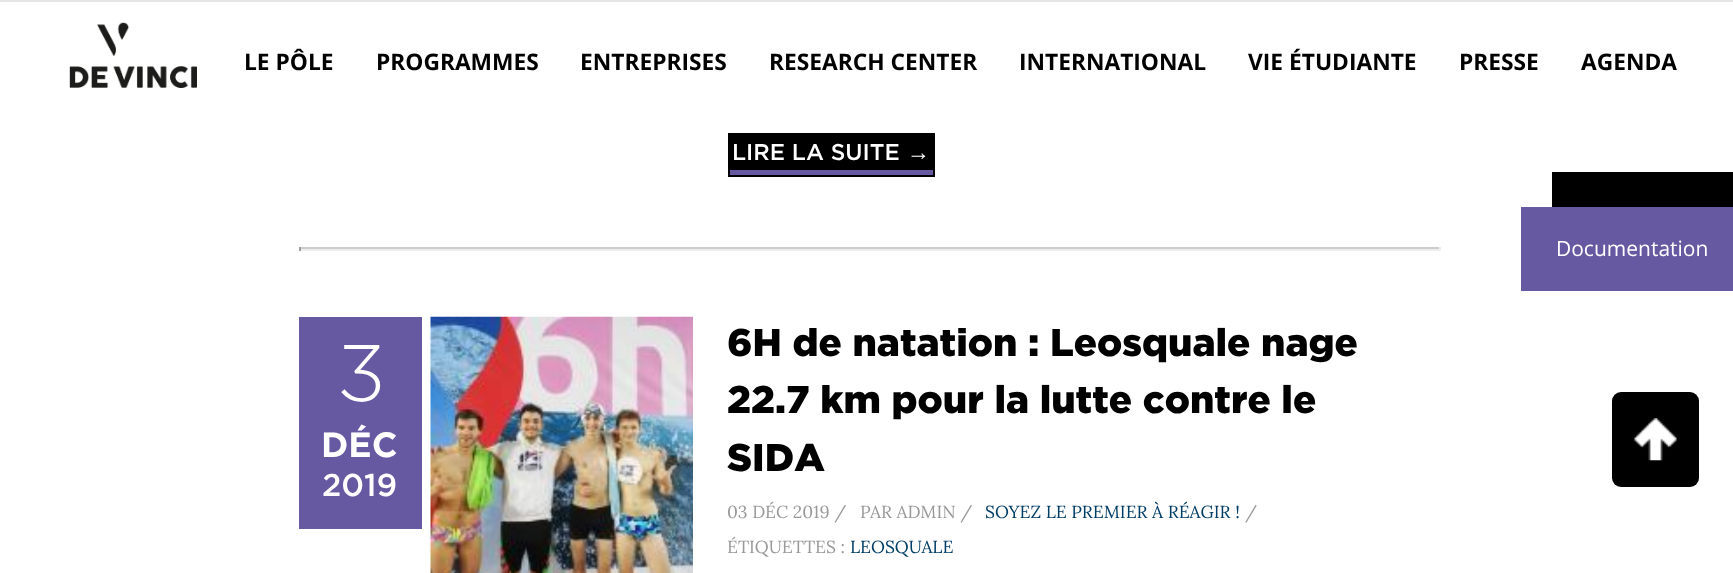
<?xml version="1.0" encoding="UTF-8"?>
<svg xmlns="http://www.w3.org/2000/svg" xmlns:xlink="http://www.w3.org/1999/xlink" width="1733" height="573">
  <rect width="100%" height="100%" fill="#ffffff" />
  <rect width="1733" height="2" fill="#e5e5e5" />
  <image x="69" y="22" width="128" height="66" xlink:href="image1.png" />
  <rect x="728" y="133" width="207" height="44" fill="#000000" />
  <rect x="730" y="170" width="203" height="5" fill="#6758a2" />
  <rect x="299" y="247" width="1141" height="2" fill="#cccccc" />
  <rect x="1439" y="247" width="2" height="4" fill="#eeeeee" />
  <rect x="299" y="249" width="1141" height="2" fill="#eeeeee" />
  <rect x="299" y="247" width="2" height="4" fill="#9f9f9f" />
  <rect x="299" y="317" width="123" height="212" fill="#6758a2" />
  <image x="430" y="316" width="263" height="257" xlink:href="image2.png" />
  <rect x="1552" y="172" width="181" height="35" fill="#000000" />
  <rect x="1521" y="207" width="212" height="84" fill="#6758a2" />
  <rect x="1612" y="392" width="87" height="95" rx="9" fill="#000000" />
  <image x="1634" y="418" width="43" height="43" xlink:href="image3.png" />
  <text x="244" y="70" style="font-family: Open Sans; font-size: 22.75px; font-weight: bold; fill: #000000">LE PÔLE</text>
  <text x="376" y="70" style="font-family: Open Sans; font-size: 22.75px; font-weight: bold; fill: #000000">PROGRAMMES</text>
  <text x="580" y="70" style="font-family: Open Sans; font-size: 22.75px; font-weight: bold; fill: #000000">ENTREPRISES</text>
  <text x="769" y="70" style="font-family: Open Sans; font-size: 22.75px; font-weight: bold; fill: #000000">RESEARCH CENTER</text>
  <text x="1019" y="70" style="font-family: Open Sans; font-size: 22.75px; font-weight: bold; fill: #000000">INTERNATIONAL</text>
  <text x="1248" y="70" style="font-family: Open Sans; font-size: 22.75px; font-weight: bold; fill: #000000">VIE ÉTUDIANTE</text>
  <text x="1459" y="70" style="font-family: Open Sans; font-size: 22.75px; font-weight: bold; fill: #000000">PRESSE</text>
  <text x="1581" y="70" style="font-family: Open Sans; font-size: 22.75px; font-weight: bold; fill: #000000">AGENDA</text>
  <text x="732" y="160" style="font-family: Gotham; font-size: 22.75px; font-weight: 500; fill: #ffffff">LIRE LA SUITE</text>
  <text x="907" y="160" style="font-family: Liberation Sans; font-size: 22.75px; fill: #ffffff">→</text>
  <text x="337" y="401" style="font-family: Gotham; font-size: 80px; font-weight: 300; letter-spacing: -4px; fill: #ffffff">3</text>
  <text x="321" y="457" style="font-family: Gotham; font-size: 35px; font-weight: bold; fill: #ffffff">DÉC</text>
  <text x="322" y="496" style="font-family: Gotham; font-size: 31.5px; font-weight: 500; fill: #ffffff">2019</text>
  <text x="727" y="356" style="font-family: Gotham; font-size: 38.5px; font-weight: 900; fill: #000000">6H de natation : Leosquale nage</text>
  <text x="727" y="413" style="font-family: Gotham; font-size: 38.5px; font-weight: 900; fill: #000000">22.7 km pour la lutte contre le</text>
  <text x="727" y="471" style="font-family: Gotham; font-size: 38.5px; font-weight: 900; fill: #000000">SIDA</text>
  <text x="727" y="518" style="font-family: Lora; font-size: 17.5px; fill: #999999">03 DÉC 2019 /</text>
  <text x="860" y="518" style="font-family: Lora; font-size: 17.5px; fill: #999999">PAR ADMIN /</text>
  <text x="985" y="518" style="font-family: Lora; font-size: 17.5px; fill: #003d66">SOYEZ LE PREMIER À RÉAGIR !</text>
  <text x="1245" y="518" style="font-family: Lora; font-size: 17.5px; fill: #999999">/</text>
  <text x="727" y="553" style="font-family: Lora; font-size: 17.5px; fill: #999999">ÉTIQUETTES :</text>
  <text x="850" y="553" style="font-family: Lora; font-size: 17.5px; fill: #003d66">LEOSQUALE</text>
  <text x="1556" y="256" style="font-family: Open Sans; font-size: 21px; fill: #ffffff">Documentation</text>
</svg>
